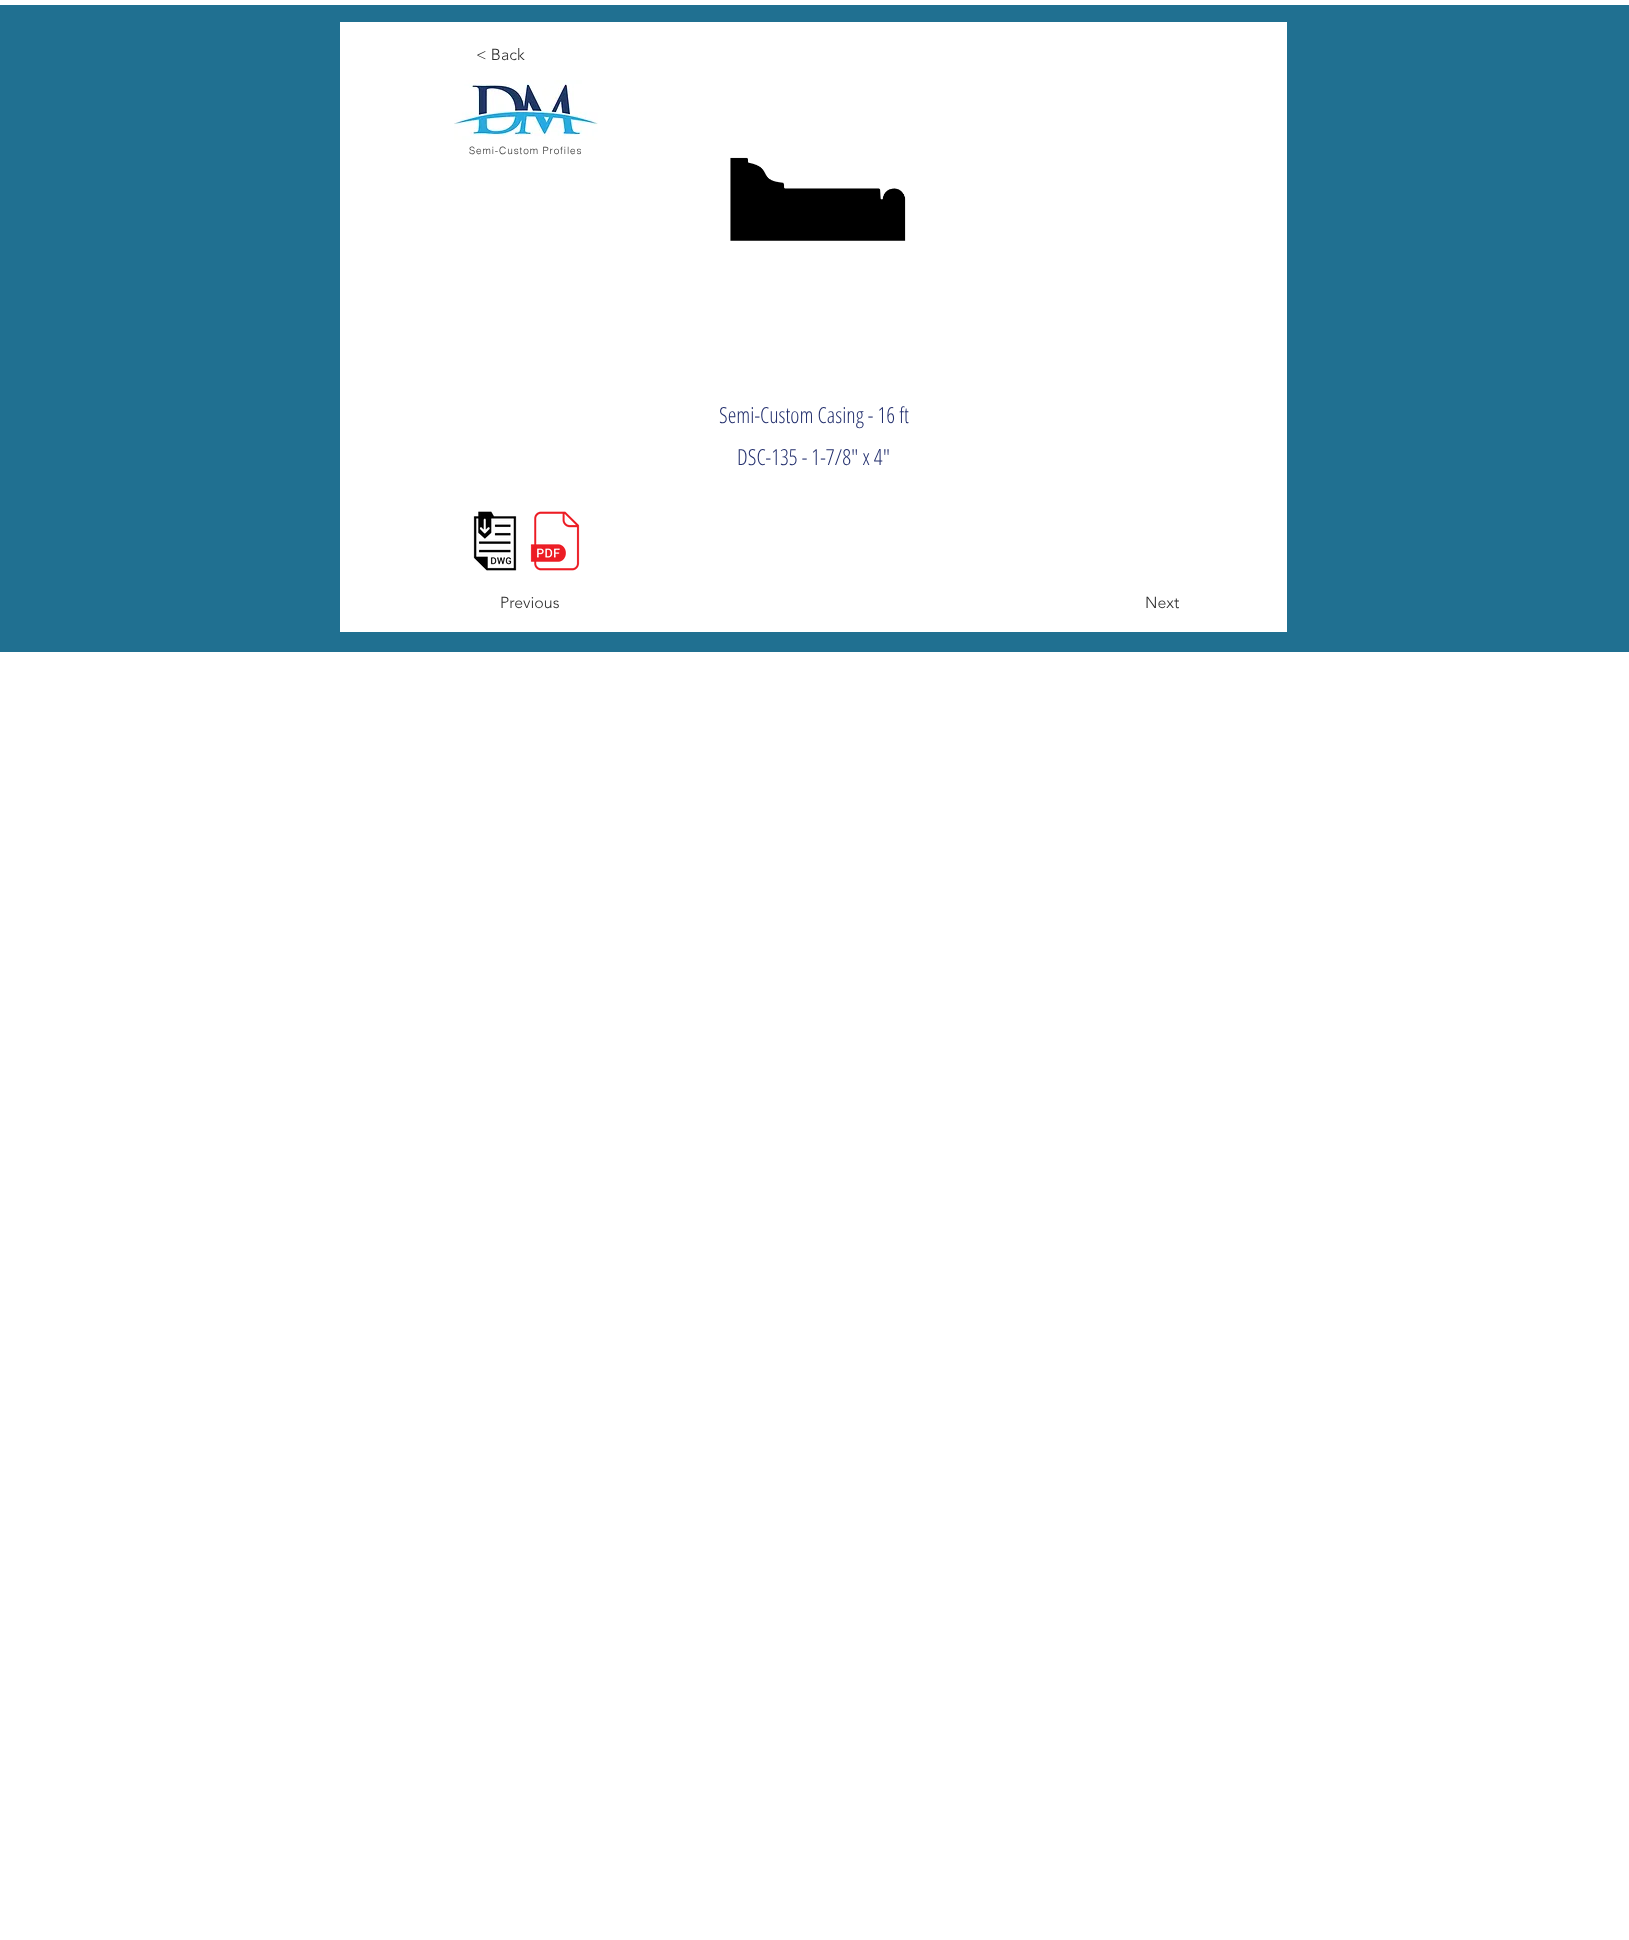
<?xml version="1.0" encoding="UTF-8"?>
<svg xmlns="http://www.w3.org/2000/svg" xmlns:xlink="http://www.w3.org/1999/xlink" width="1629" height="1940">
  <rect width="100%" height="100%" fill="#ffffff" />
  <rect y="5" width="1629" height="647" fill="#207091" />
  <rect x="340" y="22" width="947" height="610" fill="#ffffff" />
  <image x="454" y="80" width="144" height="60" xlink:href="image1.png" />
  <image x="730" y="157" width="176" height="84" xlink:href="image2.png" />
  <image x="473" y="511" width="44" height="60" xlink:href="image3.png" />
  <image x="530" y="511" width="50" height="60" xlink:href="image4.png" />
  <text x="476" y="60" style="font-family: 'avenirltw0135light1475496'; font-size: 16px; font-weight: 300; fill: #2d2d2d">&lt; Back</text>
  <text x="469" y="154" style="font-family: helvetica; font-size: 10px; font-weight: 300; letter-spacing: 0.9px; fill: #2d2d2d">Semi-Custom Profiles</text>
  <text x="719" y="423" style="font-family: Open Sans Condensed; font-size: 22px; font-weight: 300; fill: #24306e">Semi-Custom Casing - 16 ft</text>
  <text x="737" y="465" style="font-family: Open Sans Condensed; font-size: 22px; font-weight: 300; fill: #24306e">DSC-135 - 1-7/8" x 4"</text>
  <text x="500" y="608" style="font-family: 'avenirltw0135light1475496'; font-size: 16px; font-weight: 300; fill: #2d2d2d">Previous</text>
  <text x="1145" y="608" style="font-family: 'avenirltw0135light1475496'; font-size: 16px; font-weight: 300; fill: #2d2d2d">Next</text>
</svg>
